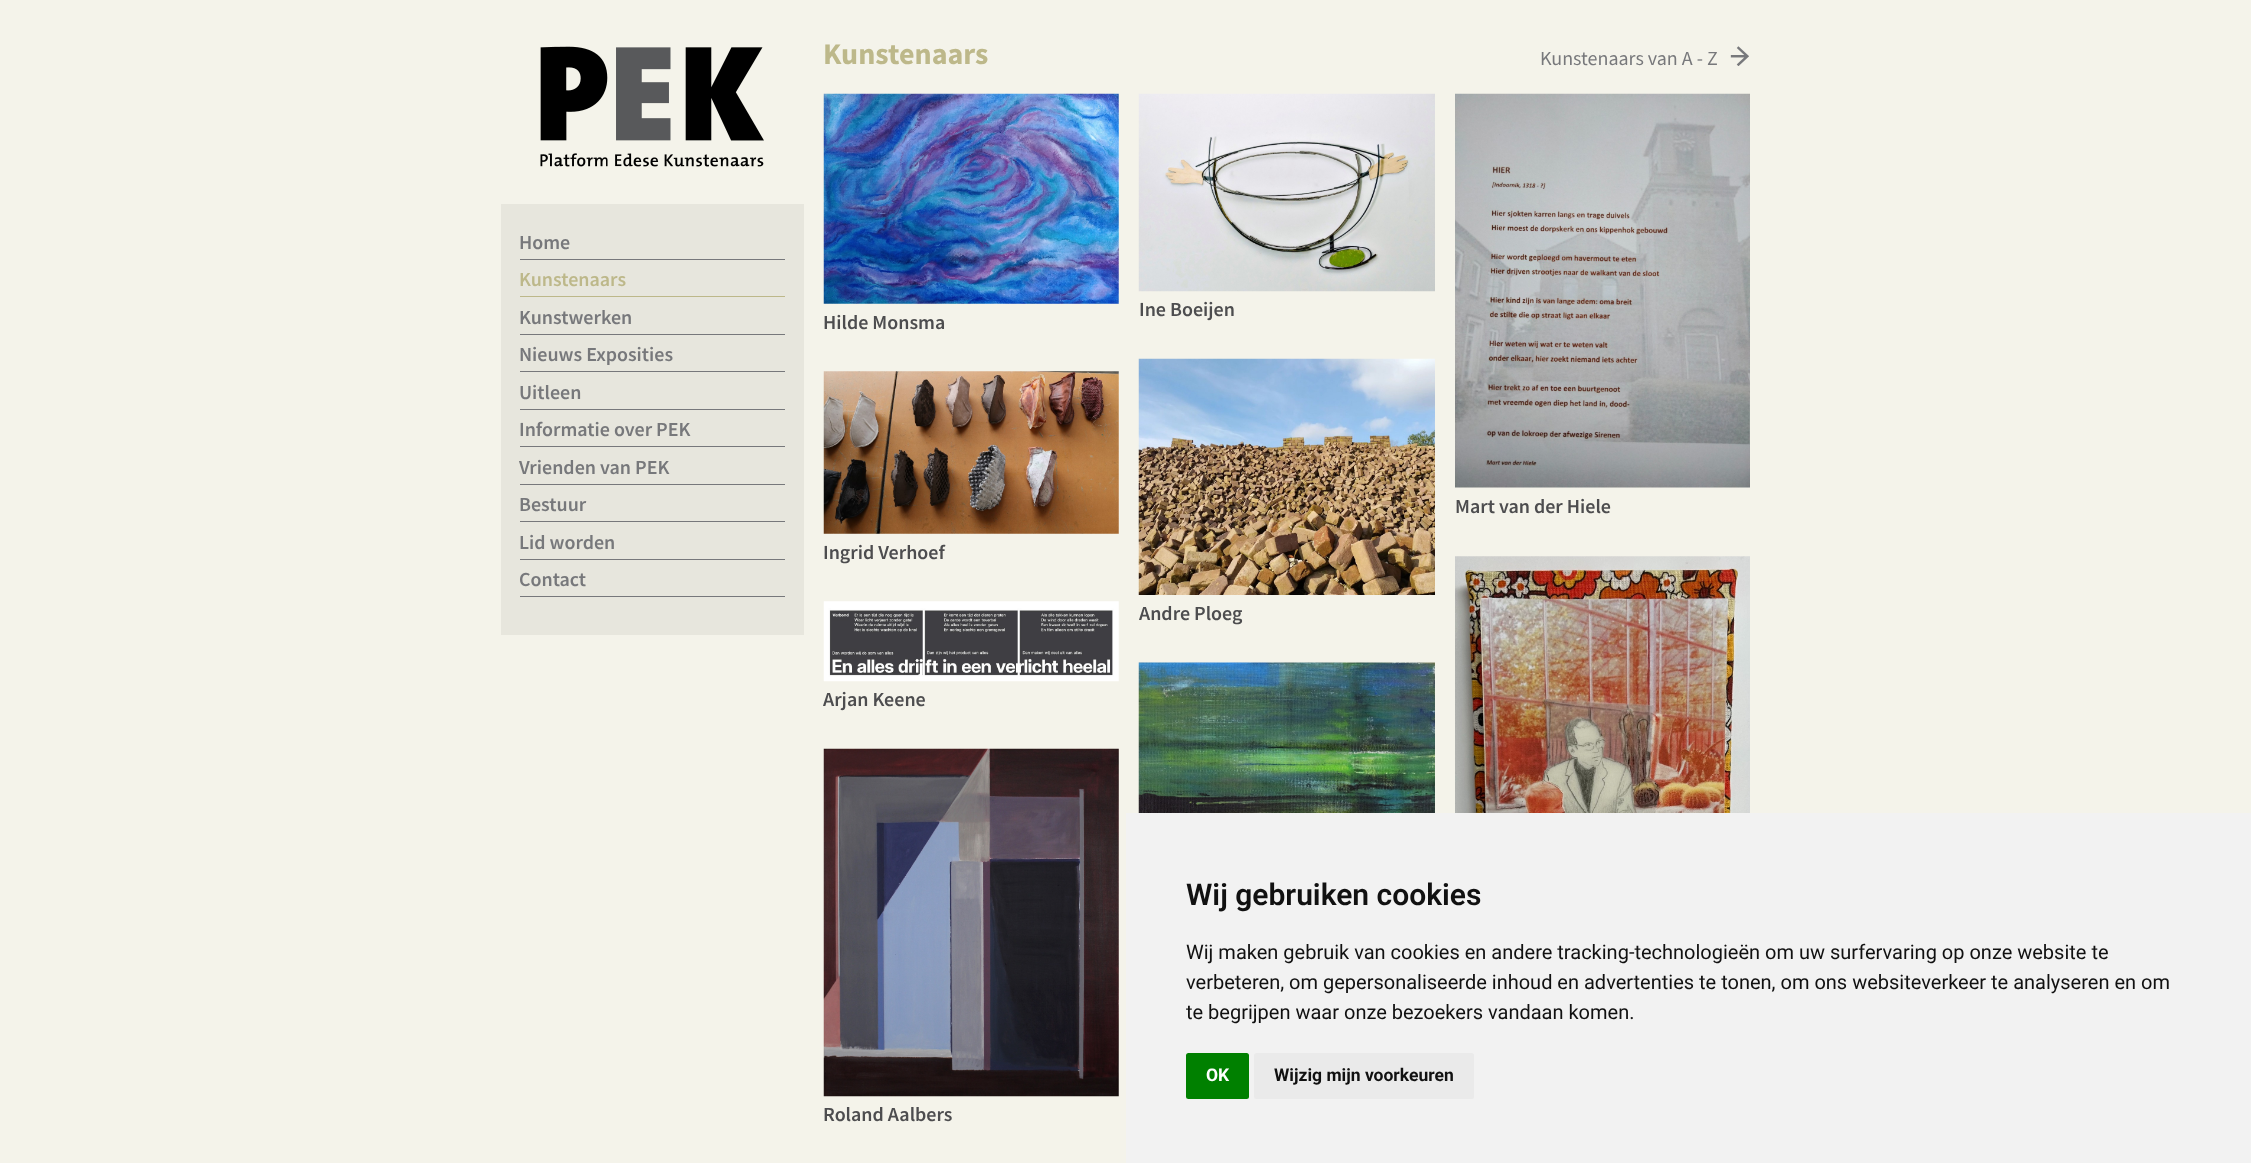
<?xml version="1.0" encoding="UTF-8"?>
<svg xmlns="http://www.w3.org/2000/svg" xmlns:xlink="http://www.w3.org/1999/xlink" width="2251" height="1163">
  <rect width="100%" height="100%" fill="#f4f3ea" />
  <image x="540" y="46" width="224" height="121" xlink:href="image1.png" />
  <rect x="501" y="204" width="303" height="431" fill="#e7e6dd" />
  <rect x="520" y="259" width="265" height="1" fill="#77787b" />
  <rect x="520" y="296" width="265" height="1" fill="#bdb88a" />
  <rect x="520" y="334" width="265" height="1" fill="#77787b" />
  <rect x="520" y="371" width="265" height="1" fill="#77787b" />
  <rect x="520" y="409" width="265" height="1" fill="#77787b" />
  <rect x="520" y="446" width="265" height="1" fill="#77787b" />
  <rect x="520" y="484" width="265" height="1" fill="#77787b" />
  <rect x="520" y="521" width="265" height="1" fill="#77787b" />
  <rect x="520" y="559" width="265" height="1" fill="#77787b" />
  <rect x="520" y="596" width="265" height="1" fill="#77787b" />
  <image x="1730" y="46" width="19" height="20" xlink:href="image2.png" />
  <image x="823" y="93" width="296" height="211" xlink:href="image3.png" />
  <image x="1138" y="93" width="297" height="199" xlink:href="image4.png" />
  <image x="1455" y="93" width="295" height="395" xlink:href="image5.png" />
  <image x="823" y="371" width="296" height="163" xlink:href="image6.png" />
  <image x="1138" y="358" width="297" height="237" xlink:href="image7.png" />
  <image x="1455" y="556" width="295" height="257" xlink:href="image8.png" />
  <image x="823" y="601" width="296" height="81" xlink:href="image9.png" />
  <image x="1138" y="662" width="297" height="151" xlink:href="image10.png" />
  <image x="823" y="748" width="296" height="349" xlink:href="image11.png" />
  <rect x="1126" y="813" width="1125" height="350" fill="#f2f2f2" />
  <rect x="1186" y="1053" width="63" height="46" rx="2.5" fill="#008000" />
  <rect x="1254" y="1053" width="220" height="46" rx="2.5" fill="#eaeaea" />
  <text x="519" y="249" style="font-family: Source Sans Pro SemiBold; font-size: 20px; font-weight: 600; fill: #77787b">Home</text>
  <text x="519" y="286" style="font-family: Source Sans Pro SemiBold; font-size: 20px; font-weight: 600; fill: #bdb88a">Kunstenaars</text>
  <text x="519" y="324" style="font-family: Source Sans Pro SemiBold; font-size: 20px; font-weight: 600; fill: #77787b">Kunstwerken</text>
  <text x="519" y="361" style="font-family: Source Sans Pro SemiBold; font-size: 20px; font-weight: 600; fill: #77787b">Nieuws Exposities</text>
  <text x="519" y="399" style="font-family: Source Sans Pro SemiBold; font-size: 20px; font-weight: 600; fill: #77787b">Uitleen</text>
  <text x="519" y="436" style="font-family: Source Sans Pro SemiBold; font-size: 20px; font-weight: 600; fill: #77787b">Informatie over PEK</text>
  <text x="519" y="474" style="font-family: Source Sans Pro SemiBold; font-size: 20px; font-weight: 600; fill: #77787b">Vrienden van PEK</text>
  <text x="519" y="511" style="font-family: Source Sans Pro SemiBold; font-size: 20px; font-weight: 600; fill: #77787b">Bestuur</text>
  <text x="519" y="549" style="font-family: Source Sans Pro SemiBold; font-size: 20px; font-weight: 600; fill: #77787b">Lid worden</text>
  <text x="519" y="586" style="font-family: Source Sans Pro SemiBold; font-size: 20px; font-weight: 600; fill: #77787b">Contact</text>
  <text x="823" y="64" style="font-family: Source Sans Pro; font-size: 30px; font-weight: bold; fill: #bdb88a">Kunstenaars</text>
  <text x="1540" y="65" style="font-family: Source Sans Pro; font-size: 20px; fill: #77787b">Kunstenaars van A - Z</text>
  <text x="823" y="329" style="font-family: Source Sans Pro SemiBold; font-size: 20px; font-weight: 600; fill: #4d4d4f">Hilde Monsma</text>
  <text x="1139" y="316" style="font-family: Source Sans Pro SemiBold; font-size: 20px; font-weight: 600; fill: #4d4d4f">Ine Boeijen</text>
  <text x="1455" y="513" style="font-family: Source Sans Pro SemiBold; font-size: 20px; font-weight: 600; fill: #4d4d4f">Mart van der Hiele</text>
  <text x="823" y="559" style="font-family: Source Sans Pro SemiBold; font-size: 20px; font-weight: 600; fill: #4d4d4f">Ingrid Verhoef</text>
  <text x="1139" y="620" style="font-family: Source Sans Pro SemiBold; font-size: 20px; font-weight: 600; fill: #4d4d4f">Andre Ploeg</text>
  <text x="823" y="706" style="font-family: Source Sans Pro SemiBold; font-size: 20px; font-weight: 600; fill: #4d4d4f">Arjan Keene</text>
  <text x="823" y="1121" style="font-family: Source Sans Pro SemiBold; font-size: 20px; font-weight: 600; fill: #4d4d4f">Roland Aalbers</text>
  <text x="1186" y="905" style="font-family: Roboto; font-size: 30px; font-weight: 600; fill: #111111">Wij gebruiken cookies</text>
  <text x="1186" y="959" style="font-family: Roboto; font-size: 20px; fill: #111111">Wij maken gebruik van cookies en andere tracking-technologieën om uw surfervaring op onze website te</text>
  <text x="1186" y="989" style="font-family: Roboto; font-size: 20px; fill: #111111">verbeteren, om gepersonaliseerde inhoud en advertenties te tonen, om ons websiteverkeer te analyseren en om</text>
  <text x="1186" y="1019" style="font-family: Roboto; font-size: 20px; fill: #111111">te begrijpen waar onze bezoekers vandaan komen.</text>
  <text x="1206" y="1081" style="font-family: Roboto; font-size: 17.5px; font-weight: bold; fill: #ffffff">OK</text>
  <text x="1274" y="1081" style="font-family: Roboto; font-size: 17.5px; font-weight: bold; fill: #111111">Wijzig mijn voorkeuren</text>
</svg>
